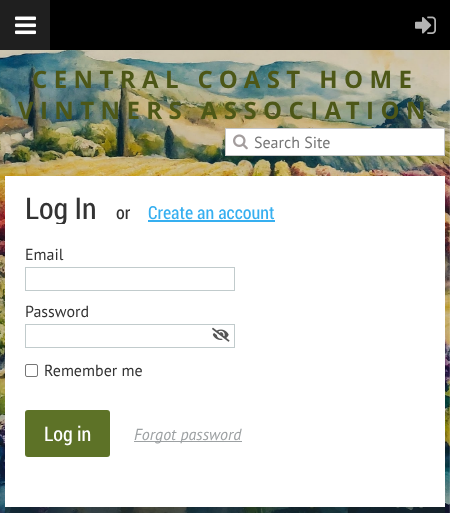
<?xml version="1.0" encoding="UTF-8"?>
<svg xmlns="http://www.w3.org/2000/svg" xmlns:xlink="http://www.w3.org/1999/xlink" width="450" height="513">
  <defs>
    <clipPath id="clip1"><rect x="25" y="196" width="400" height="28" /></clipPath>
  </defs>
  <rect width="100%" height="100%" fill="#ffffff" />
  <image x="0" y="50" width="450" height="463" xlink:href="image1.png" />
  <rect x="50" width="400" height="50" fill="#000000" />
  <rect width="50" height="50" fill="#1f1f1f" />
  <image x="15" y="16" width="21" height="19" xlink:href="image2.png" />
  <image x="415" y="16" width="21" height="18" xlink:href="image3.png" />
  <rect x="225.5" y="128.5" width="219" height="27" fill="#ffffff" stroke="#c6c6c6" />
  <image x="233" y="134" width="15" height="16" xlink:href="image4.png" />
  <rect x="5" y="176" width="440" height="331" fill="#ffffff" />
  <rect x="148" y="220" width="127" height="2" fill="#36aff0" />
  <rect x="25.5" y="267.5" width="209" height="23" fill="none" stroke="#c1cbcc" />
  <rect x="25.5" y="324.5" width="209" height="23" fill="none" stroke="#c1cbcc" />
  <image x="212" y="327" width="18" height="15" xlink:href="image5.png" />
  <rect x="25.5" y="364.5" width="12" height="12" rx="1.5" fill="none" stroke="#767676" />
  <rect x="25" y="410" width="85" height="47" rx="3" fill="#5d7227" />
  <rect x="134" y="441" width="108" height="1" fill="#9da1a3" />
  <rect x="5" y="507" width="440" height="6" fill="#152928" fill-opacity="0.6" />
  <text x="32" y="88" style="font-family: Open Sans; font-size: 24px; font-weight: bold; letter-spacing: 6.4px; fill: #4d5717">CENTRAL COAST HOME</text>
  <text x="18" y="119" style="font-family: Open Sans; font-size: 24px; font-weight: bold; letter-spacing: 6.4px; fill: #4d5717">VINTNERS ASSOCIATION</text>
  <text x="254" y="148" style="font-family: PT Sans; font-size: 16px; fill: #757575">Search Site</text>
  <g clip-path="url(#clip1)">
    <text x="25" y="219" style="font-family: Roboto Condensed; font-size: 30px; fill: #333333">Log In</text>
  </g>
  <text x="116" y="219" style="font-family: Roboto Condensed; font-size: 18px; fill: #333333">or</text>
  <text x="148" y="219" style="font-family: Roboto Condensed; font-size: 18px; fill: #36aff0">Create an account</text>
  <text x="25" y="260" style="font-family: PT Sans; font-size: 16px; fill: #333333">Email</text>
  <text x="25" y="317" style="font-family: PT Sans; font-size: 16px; fill: #333333">Password</text>
  <text x="44" y="376" style="font-family: PT Sans; font-size: 16px; fill: #333333">Remember me</text>
  <text x="44" y="441" style="font-family: Roboto Condensed; font-size: 20px; fill: #ffffff">Log in</text>
  <text x="134" y="440" style="font-family: PT Sans; font-size: 16px; font-style: italic; fill: #9da1a3">Forgot password</text>
</svg>
